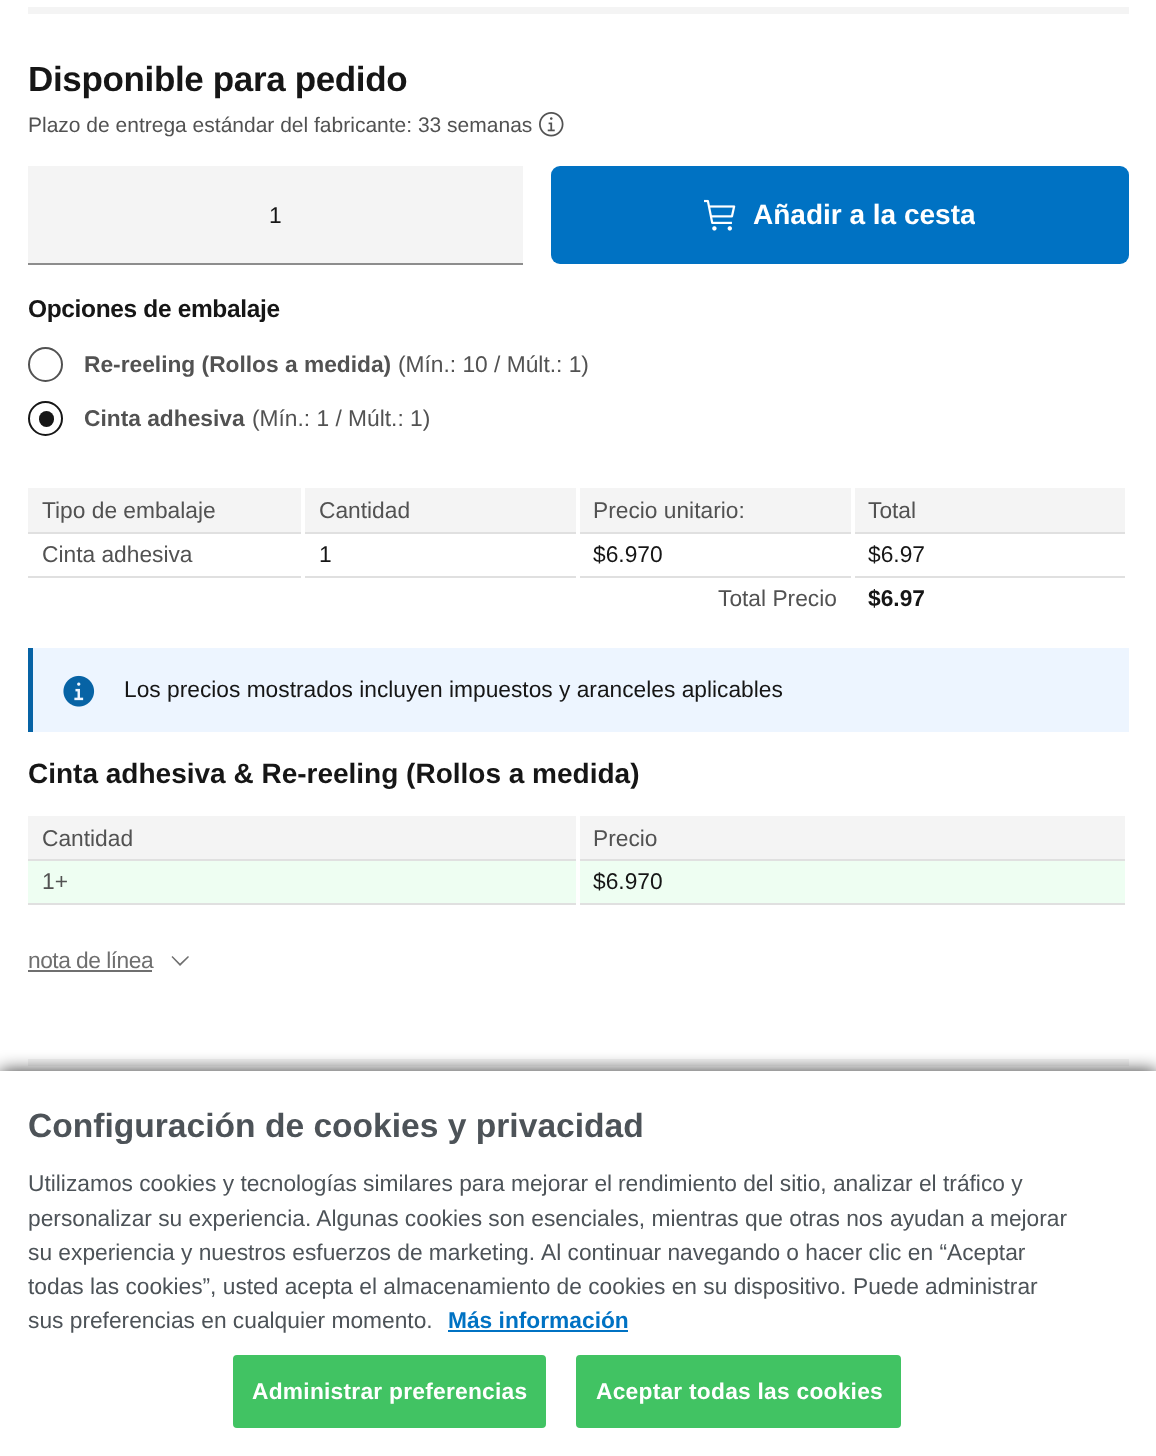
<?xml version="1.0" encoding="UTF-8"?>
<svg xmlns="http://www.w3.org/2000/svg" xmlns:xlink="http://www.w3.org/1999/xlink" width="1156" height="1456">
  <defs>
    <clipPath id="clip1"><rect x="753" y="191" width="222" height="49" /></clipPath>
  </defs>
  <rect width="100%" height="100%" fill="#ffffff" />
  <rect x="28" y="7" width="1101" height="7" fill="#f4f4f4" />
  <image x="539" y="112" width="25" height="25" xlink:href="image1.png" />
  <rect x="28" y="166" width="495" height="97" fill="#f4f4f4" />
  <rect x="28" y="263" width="495" height="2" fill="#8d8d8d" />
  <rect x="551" y="166" width="578" height="98" rx="9" fill="#0072c3" />
  <image x="704" y="199" width="32" height="32" xlink:href="image2.png" />
  <circle cx="45.5" cy="364.5" r="16.5" fill="none" stroke="#525252" stroke-width="2" />
  <circle cx="45.5" cy="418.5" r="16.5" fill="none" stroke="#161616" stroke-width="2" />
  <rect x="39" y="411" width="15" height="16" rx="7.5" fill="#161616" />
  <rect x="28" y="490" width="273" height="42" fill="#f4f4f4" />
  <rect x="28" y="488" width="1101" height="2" fill="#f4f4f4" />
  <rect x="301" y="488" width="4" height="2" fill="#ffffff" />
  <rect x="305" y="490" width="271" height="42" fill="#f4f4f4" />
  <rect x="576" y="488" width="4" height="2" fill="#ffffff" />
  <rect x="580" y="490" width="271" height="42" fill="#f4f4f4" />
  <rect x="851" y="488" width="4" height="2" fill="#ffffff" />
  <rect x="855" y="490" width="270" height="42" fill="#f4f4f4" />
  <rect x="28" y="532" width="1101" height="2" fill="#e0e0e0" />
  <rect x="1125" y="488" width="4" height="2" fill="#ffffff" />
  <rect x="28" y="576" width="1101" height="2" fill="#e0e0e0" />
  <rect x="301" y="532" width="4" height="47" fill="#ffffff" />
  <rect x="576" y="532" width="4" height="47" fill="#ffffff" />
  <rect x="851" y="532" width="4" height="2" fill="#ffffff" />
  <rect x="1125" y="532" width="4" height="2" fill="#ffffff" />
  <rect x="851" y="576" width="4" height="2" fill="#ffffff" />
  <rect x="1125" y="576" width="4" height="2" fill="#ffffff" />
  <rect x="33" y="648" width="1096" height="84" fill="#edf5ff" />
  <rect x="28" y="648" width="5" height="84" fill="#0763a5" />
  <image x="63" y="675" width="32" height="32" xlink:href="image3.png" />
  <rect x="28" y="818" width="548" height="41" fill="#f4f4f4" />
  <rect x="28" y="816" width="1101" height="2" fill="#f4f4f4" />
  <rect x="576" y="816" width="4" height="2" fill="#ffffff" />
  <rect x="580" y="818" width="545" height="41" fill="#f4f4f4" />
  <rect x="28" y="859" width="1101" height="2" fill="#e0e0e0" />
  <rect x="1125" y="816" width="4" height="2" fill="#ffffff" />
  <rect x="28" y="861" width="548" height="42" fill="#eefef2" />
  <rect x="28" y="903" width="1101" height="2" fill="#e0e0e0" />
  <rect x="576" y="859" width="4" height="48" fill="#ffffff" />
  <rect x="580" y="861" width="545" height="42" fill="#eefef2" />
  <rect x="1125" y="859" width="4" height="48" fill="#ffffff" />
  <rect x="28" y="970" width="124" height="2" fill="#6f6f6f" />
  <path d="M 180 966 l -8.5 -9 l 1 -1 l 7.5 7.5 l 8 -7.5 l 1 1 z" fill="#6f6f6f" />
  <rect x="28" y="1059" width="1101" height="7" fill="#f4f4f4" />
  <rect y="1071" width="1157" height="385" fill="#000000" fill-opacity="0.8" filter="blur(9px)" />
  <rect y="1071" width="1156" height="385" fill="#ffffff" />
  <rect x="448" y="1330" width="180" height="2" fill="#0072c3" />
  <rect x="234" y="1356" width="311" height="71" rx="3" fill="#41c363" stroke="#41c363" stroke-width="2" />
  <rect x="577" y="1356" width="323" height="71" rx="3" fill="#41c363" stroke="#41c363" stroke-width="2" />
  <text x="28" y="91" style="font-family: Liberation Sans; font-size: 35px; font-weight: bold; letter-spacing: -0.35px; fill: #161616">Disponible para pedido</text>
  <text x="28" y="132" style="font-family: Liberation Sans; font-size: 21px; fill: #525252">Plazo de entrega estándar del fabricante: 33 semanas</text>
  <text x="269" y="223" style="font-family: Liberation Sans; font-size: 22.75px; fill: #161616">1</text>
  <g clip-path="url(#clip1)">
    <text x="753" y="224" style="font-family: Liberation Sans; font-size: 28px; font-weight: bold; fill: #ffffff">Añadir a la cesta</text>
  </g>
  <text x="28" y="317" style="font-family: Liberation Sans; font-size: 24.5px; font-weight: bold; letter-spacing: -0.35px; fill: #161616">Opciones de embalaje</text>
  <text x="84" y="372" style="font-family: Liberation Sans; font-size: 22.75px; font-weight: bold; fill: #525252">Re-reeling (Rollos a medida)</text>
  <text x="398" y="372" style="font-family: Liberation Sans; font-size: 22.75px; fill: #525252">(Mín.: 10 / Múlt.: 1)</text>
  <text x="84" y="426" style="font-family: Liberation Sans; font-size: 22.75px; font-weight: bold; fill: #525252">Cinta adhesiva</text>
  <text x="252" y="426" style="font-family: Liberation Sans; font-size: 22.75px; fill: #525252">(Mín.: 1 / Múlt.: 1)</text>
  <text x="42" y="518" style="font-family: Liberation Sans; font-size: 22.75px; fill: #525252">Tipo de embalaje</text>
  <text x="319" y="518" style="font-family: Liberation Sans; font-size: 22.75px; fill: #525252">Cantidad</text>
  <text x="593" y="518" style="font-family: Liberation Sans; font-size: 22.75px; fill: #525252">Precio unitario:</text>
  <text x="868" y="518" style="font-family: Liberation Sans; font-size: 22.75px; fill: #525252">Total</text>
  <text x="42" y="562" style="font-family: Liberation Sans; font-size: 22.75px; fill: #525252">Cinta adhesiva</text>
  <text x="319" y="562" style="font-family: Liberation Sans; font-size: 22.75px; fill: #161616">1</text>
  <text x="593" y="562" style="font-family: Liberation Sans; font-size: 22.75px; fill: #161616">$6.970</text>
  <text x="868" y="562" style="font-family: Liberation Sans; font-size: 22.75px; fill: #161616">$6.97</text>
  <text x="718" y="606" style="font-family: Liberation Sans; font-size: 22.75px; fill: #525252">Total Precio</text>
  <text x="868" y="606" style="font-family: Liberation Sans; font-size: 22.75px; font-weight: bold; fill: #161616">$6.97</text>
  <text x="124" y="697" style="font-family: Liberation Sans; font-size: 22.75px; fill: #161616">Los precios mostrados incluyen impuestos y aranceles aplicables</text>
  <text x="28" y="783" style="font-family: Liberation Sans; font-size: 28px; font-weight: bold; fill: #161616">Cinta adhesiva &amp; Re-reeling (Rollos a medida)</text>
  <text x="42" y="846" style="font-family: Liberation Sans; font-size: 22.75px; fill: #525252">Cantidad</text>
  <text x="593" y="846" style="font-family: Liberation Sans; font-size: 22.75px; fill: #525252">Precio</text>
  <text x="42" y="889" style="font-family: Liberation Sans; font-size: 22.75px; fill: #525252">1+</text>
  <text x="593" y="889" style="font-family: Liberation Sans; font-size: 22.75px; fill: #161616">$6.970</text>
  <text x="28" y="968" style="font-family: Liberation Sans; font-size: 22.75px; letter-spacing: -0.5px; fill: #6f6f6f">nota de línea</text>
  <text x="28" y="1137" style="font-family: Liberation Sans; font-size: 33.6px; font-weight: bold; fill: #4d5358">Configuración de cookies y privacidad</text>
  <text x="28" y="1191" style="font-family: Liberation Sans; font-size: 22.75px; fill: #4d5358">Utilizamos cookies y tecnologías similares para mejorar el</text>
  <text x="618" y="1191" style="font-family: Liberation Sans; font-size: 22.75px; fill: #4d5358">rendimiento del sitio, analizar el tráfico y</text>
  <text x="28" y="1226" style="font-family: Liberation Sans; font-size: 22.75px; fill: #4d5358">personalizar su experiencia. Algunas cookies son esenciales, mientras que otras nos</text>
  <text x="890" y="1226" style="font-family: Liberation Sans; font-size: 22.75px; fill: #4d5358">ayudan a mejorar</text>
  <text x="28" y="1260" style="font-family: Liberation Sans; font-size: 22.75px; fill: #4d5358">su experiencia y nuestros esfuerzos de marketing.</text>
  <text x="541" y="1260" style="font-family: Liberation Sans; font-size: 22.75px; fill: #4d5358">Al continuar navegando o hacer clic en “Aceptar</text>
  <text x="28" y="1294" style="font-family: Liberation Sans; font-size: 22.75px; fill: #4d5358">todas las cookies”, usted acepta el almacenamiento de cookies en su dispositivo.</text>
  <text x="853" y="1294" style="font-family: Liberation Sans; font-size: 22.75px; fill: #4d5358">Puede administrar</text>
  <text x="28" y="1328" style="font-family: Liberation Sans; font-size: 22.75px; fill: #4d5358">sus preferencias en cualquier momento.</text>
  <text x="448" y="1328" style="font-family: Liberation Sans; font-size: 22.75px; font-weight: bold; fill: #0072c3">Más información</text>
  <text x="252" y="1399" style="font-family: Liberation Sans; font-size: 22.75px; font-weight: bold; letter-spacing: 0.25px; fill: #ffffff">Administrar preferencias</text>
  <text x="596" y="1399" style="font-family: Liberation Sans; font-size: 22.75px; font-weight: bold; letter-spacing: 0.25px; fill: #ffffff">Aceptar todas las cookies</text>
</svg>
